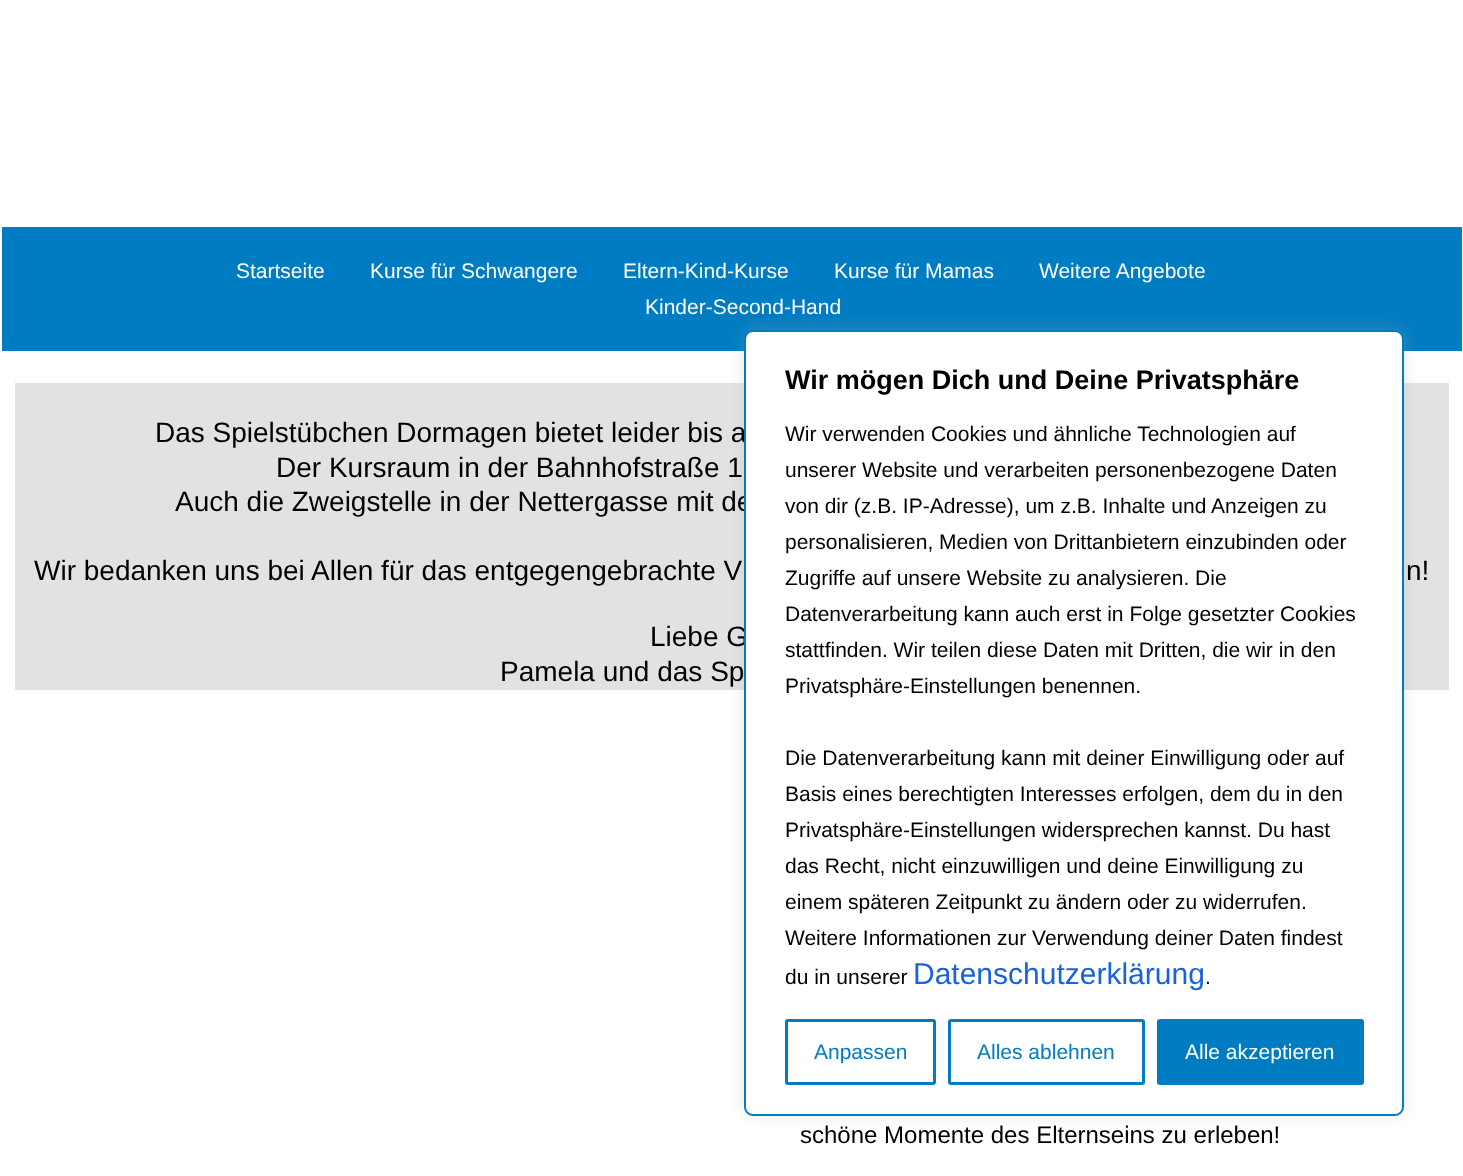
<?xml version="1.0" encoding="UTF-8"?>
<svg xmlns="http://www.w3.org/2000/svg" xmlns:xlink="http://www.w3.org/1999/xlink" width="1463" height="1176">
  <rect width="100%" height="100%" fill="#ffffff" />
  <rect x="2" y="227" width="1460" height="124" fill="#007cc2" />
  <rect x="15" y="383" width="1434" height="307" fill="#e2e2e2" />
  <rect x="744" y="329" width="660" height="786" rx="9" fill="#acabab" fill-opacity="0.3" filter="blur(7.5px)" />
  <text x="236" y="278" style="font-family: Liberation Sans; font-size: 21px; fill: #ffffff">Startseite</text>
  <text x="370" y="278" style="font-family: Liberation Sans; font-size: 21px; fill: #ffffff">Kurse für Schwangere</text>
  <text x="623" y="278" style="font-family: Liberation Sans; font-size: 21px; fill: #ffffff">Eltern-Kind-Kurse</text>
  <text x="834" y="278" style="font-family: Liberation Sans; font-size: 21px; fill: #ffffff">Kurse für Mamas</text>
  <text x="1039" y="278" style="font-family: Liberation Sans; font-size: 21px; fill: #ffffff">Weitere Angebote</text>
  <text x="645" y="314" style="font-family: Liberation Sans; font-size: 21px; fill: #ffffff">Kinder-Second-Hand</text>
  <text x="155" y="442" style="font-family: Liberation Sans; font-size: 28px; fill: #000000">Das Spielstübchen Dormagen bietet leider bis a</text>
  <text x="276" y="477" style="font-family: Liberation Sans; font-size: 28px; fill: #000000">Der Kursraum in der Bahnhofstraße 1</text>
  <text x="175" y="511" style="font-family: Liberation Sans; font-size: 28px; fill: #000000">Auch die Zweigstelle in der Nettergasse mit de</text>
  <text x="34" y="580" style="font-family: Liberation Sans; font-size: 28px; fill: #000000">Wir bedanken uns bei Allen für das entgegengebrachte V</text>
  <text x="1406" y="580" style="font-family: Liberation Sans; font-size: 28px; fill: #000000">n!</text>
  <text x="650" y="646" style="font-family: Liberation Sans; font-size: 28px; fill: #000000">Liebe G</text>
  <rect x="745" y="331" width="658" height="784" rx="8" fill="#ffffff" stroke="#007cc2" stroke-width="2" />
  <rect x="1158.5" y="1020.5" width="204" height="63" rx="1.5" fill="#007cc2" stroke="#007cc2" stroke-width="3" />
  <text x="1185" y="1059" style="font-family: Liberation Sans; font-size: 21px; fill: #ffffff">Alle akzeptieren</text>
  <rect x="949.5" y="1020.5" width="194" height="63" rx="1.5" fill="none" stroke="#007cc2" stroke-width="3" />
  <text x="977" y="1059" style="font-family: Liberation Sans; font-size: 21px; fill: #007cc2">Alles ablehnen</text>
  <rect x="786.5" y="1020.5" width="148" height="63" rx="1.5" fill="none" stroke="#007cc2" stroke-width="3" />
  <text x="814" y="1059" style="font-family: Liberation Sans; font-size: 21px; fill: #007cc2">Anpassen</text>
  <text x="1205" y="984" style="font-family: Liberation Sans; font-size: 21px; fill: #000000">.</text>
  <text x="913" y="984" style="font-family: Liberation Sans; font-size: 30px; fill: #1863dc">Datenschutzerklärung</text>
  <text x="785" y="984" style="font-family: Liberation Sans; font-size: 21px; fill: #000000">du in unserer</text>
  <text x="785" y="945" style="font-family: Liberation Sans; font-size: 21px; fill: #000000">Weitere Informationen zur Verwendung deiner Daten findest</text>
  <text x="785" y="909" style="font-family: Liberation Sans; font-size: 21px; fill: #000000">einem späteren Zeitpunkt zu ändern oder zu widerrufen.</text>
  <text x="785" y="873" style="font-family: Liberation Sans; font-size: 21px; fill: #000000">das Recht, nicht einzuwilligen und deine Einwilligung zu</text>
  <text x="785" y="837" style="font-family: Liberation Sans; font-size: 21px; fill: #000000">Privatsphäre-Einstellungen widersprechen kannst. Du hast</text>
  <text x="785" y="801" style="font-family: Liberation Sans; font-size: 21px; fill: #000000">Basis eines berechtigten Interesses erfolgen, dem du in den</text>
  <text x="785" y="765" style="font-family: Liberation Sans; font-size: 21px; fill: #000000">Die Datenverarbeitung kann mit deiner Einwilligung oder auf</text>
  <text x="785" y="693" style="font-family: Liberation Sans; font-size: 21px; fill: #000000">Privatsphäre-Einstellungen benennen.</text>
  <text x="785" y="657" style="font-family: Liberation Sans; font-size: 21px; fill: #000000">stattfinden. Wir teilen diese Daten mit Dritten, die wir in den</text>
  <text x="785" y="621" style="font-family: Liberation Sans; font-size: 21px; fill: #000000">Datenverarbeitung kann auch erst in Folge gesetzter Cookies</text>
  <text x="785" y="585" style="font-family: Liberation Sans; font-size: 21px; fill: #000000">Zugriffe auf unsere Website zu analysieren. Die</text>
  <text x="785" y="549" style="font-family: Liberation Sans; font-size: 21px; fill: #000000">personalisieren, Medien von Drittanbietern einzubinden oder</text>
  <text x="785" y="513" style="font-family: Liberation Sans; font-size: 21px; fill: #000000">von dir (z.B. IP-Adresse), um z.B. Inhalte und Anzeigen zu</text>
  <text x="785" y="477" style="font-family: Liberation Sans; font-size: 21px; fill: #000000">unserer Website und verarbeiten personenbezogene Daten</text>
  <text x="785" y="441" style="font-family: Liberation Sans; font-size: 21px; fill: #000000">Wir verwenden Cookies und ähnliche Technologien auf</text>
  <text x="785" y="389" style="font-family: Liberation Sans; font-size: 27px; font-weight: bold; fill: #000000">Wir mögen Dich und Deine Privatsphäre</text>
  <text x="500" y="681" style="font-family: Liberation Sans; font-size: 28px; fill: #000000">Pamela und das Sp</text>
  <text x="800" y="1143" style="font-family: Liberation Sans; font-size: 24px; fill: #000000">schöne Momente des Elternseins zu erleben!</text>
</svg>
